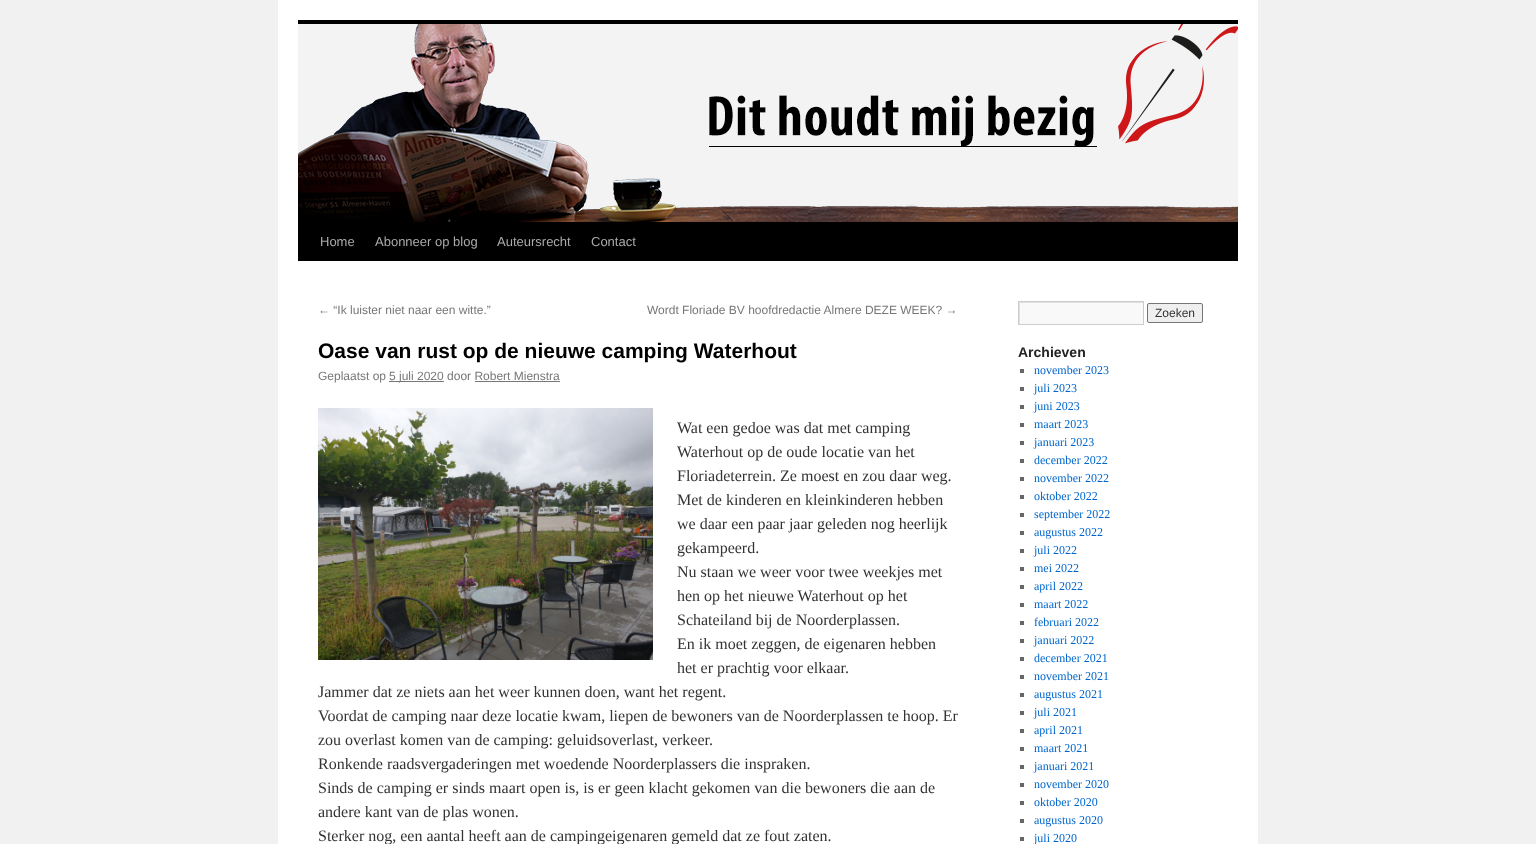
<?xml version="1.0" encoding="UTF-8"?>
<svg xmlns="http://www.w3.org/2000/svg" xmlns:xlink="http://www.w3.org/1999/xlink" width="1536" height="844">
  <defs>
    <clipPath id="clip1"><rect x="1019" y="302" width="124" height="22" /></clipPath>
  </defs>
  <rect width="100%" height="100%" fill="#f1f1f1" />
  <rect x="278" width="980" height="844" fill="#ffffff" />
  <rect x="298" y="20" width="940" height="4" fill="#000000" />
  <rect x="298" y="222" width="940" height="39" fill="#000000" />
  <image x="298" y="24" width="940" height="198" xlink:href="image1.png" />
  <rect x="389" y="381" width="55" height="1" fill="#777777" />
  <rect x="475" y="381" width="85" height="1" fill="#777777" />
  <image x="318" y="408" width="335" height="252" xlink:href="image2.png" />
  <rect x="1020" y="303" width="123" height="21" fill="#f9f9f9" />
  <g clip-path="url(#clip1)">
    <path d="M 920 203 h 322 v 220 h -322 z m 100 100 h 124 v 22 h -124 z" fill="#e0e0e0" fill-rule="evenodd" />
  </g>
  <rect x="1018.5" y="301.5" width="125" height="23" fill="none" stroke="#cccccc" />
  <rect x="1147.5" y="303.5" width="55" height="19" rx="1.5" fill="#efefef" stroke="#767676" />
  <rect x="1020" y="369" width="4" height="4" fill="#666666" />
  <rect x="1020" y="387" width="4" height="4" fill="#666666" />
  <rect x="1020" y="405" width="4" height="4" fill="#666666" />
  <rect x="1020" y="423" width="4" height="4" fill="#666666" />
  <rect x="1020" y="441" width="4" height="4" fill="#666666" />
  <rect x="1020" y="459" width="4" height="4" fill="#666666" />
  <rect x="1020" y="477" width="4" height="4" fill="#666666" />
  <rect x="1020" y="495" width="4" height="4" fill="#666666" />
  <rect x="1020" y="513" width="4" height="4" fill="#666666" />
  <rect x="1020" y="531" width="4" height="4" fill="#666666" />
  <rect x="1020" y="549" width="4" height="4" fill="#666666" />
  <rect x="1020" y="567" width="4" height="4" fill="#666666" />
  <rect x="1020" y="585" width="4" height="4" fill="#666666" />
  <rect x="1020" y="603" width="4" height="4" fill="#666666" />
  <rect x="1020" y="621" width="4" height="4" fill="#666666" />
  <rect x="1020" y="639" width="4" height="4" fill="#666666" />
  <rect x="1020" y="657" width="4" height="4" fill="#666666" />
  <rect x="1020" y="675" width="4" height="4" fill="#666666" />
  <rect x="1020" y="693" width="4" height="4" fill="#666666" />
  <rect x="1020" y="711" width="4" height="4" fill="#666666" />
  <rect x="1020" y="729" width="4" height="4" fill="#666666" />
  <rect x="1020" y="747" width="4" height="4" fill="#666666" />
  <rect x="1020" y="765" width="4" height="4" fill="#666666" />
  <rect x="1020" y="783" width="4" height="4" fill="#666666" />
  <rect x="1020" y="801" width="4" height="4" fill="#666666" />
  <rect x="1020" y="819" width="4" height="4" fill="#666666" />
  <rect x="1020" y="837" width="4" height="4" fill="#666666" />
  <text x="320" y="246" style="font-family: Liberation Sans; font-size: 13px; fill: #aaaaaa">Home</text>
  <text x="375" y="246" style="font-family: Liberation Sans; font-size: 13px; fill: #aaaaaa">Abonneer op blog</text>
  <text x="497" y="246" style="font-family: Liberation Sans; font-size: 13px; fill: #aaaaaa">Auteursrecht</text>
  <text x="591" y="246" style="font-family: Liberation Sans; font-size: 13px; fill: #aaaaaa">Contact</text>
  <text x="318" y="314" style="font-family: Liberation Sans; font-size: 12px; fill: #777777">← “Ik luister niet naar een witte.”</text>
  <text x="647" y="314" style="font-family: Liberation Sans; font-size: 12px; fill: #777777">Wordt Floriade BV hoofdredactie Almere DEZE WEEK? →</text>
  <text x="318" y="358" style="font-family: Liberation Sans; font-size: 21px; font-weight: bold; fill: #000000">Oase van rust op de nieuwe camping Waterhout</text>
  <text x="318" y="380" style="font-family: Liberation Sans; font-size: 12px; fill: #777777">Geplaatst op</text>
  <text x="389" y="380" style="font-family: Liberation Sans; font-size: 12px; fill: #777777">5 juli 2020 door Robert Mienstra</text>
  <text x="677" y="433" style="font-family: Liberation Serif; font-size: 16px; fill: #333333">Wat een gedoe was dat met camping</text>
  <text x="677" y="457" style="font-family: Liberation Serif; font-size: 16px; fill: #333333">Waterhout op de oude locatie van het</text>
  <text x="677" y="481" style="font-family: Liberation Serif; font-size: 16px; fill: #333333">Floriadeterrein. Ze moest en zou daar weg.</text>
  <text x="677" y="505" style="font-family: Liberation Serif; font-size: 16px; fill: #333333">Met de kinderen en kleinkinderen hebben</text>
  <text x="677" y="529" style="font-family: Liberation Serif; font-size: 16px; fill: #333333">we daar een paar jaar geleden nog heerlijk</text>
  <text x="677" y="553" style="font-family: Liberation Serif; font-size: 16px; fill: #333333">gekampeerd.</text>
  <text x="677" y="577" style="font-family: Liberation Serif; font-size: 16px; fill: #333333">Nu staan we weer voor twee weekjes met</text>
  <text x="677" y="601" style="font-family: Liberation Serif; font-size: 16px; fill: #333333">hen op het nieuwe Waterhout op het</text>
  <text x="677" y="625" style="font-family: Liberation Serif; font-size: 16px; fill: #333333">Schateiland bij de Noorderplassen.</text>
  <text x="677" y="649" style="font-family: Liberation Serif; font-size: 16px; fill: #333333">En ik moet zeggen, de eigenaren hebben</text>
  <text x="677" y="673" style="font-family: Liberation Serif; font-size: 16px; fill: #333333">het er prachtig voor elkaar.</text>
  <text x="318" y="697" style="font-family: Liberation Serif; font-size: 16px; fill: #333333">Jammer dat ze niets aan het weer kunnen doen, want het regent.</text>
  <text x="318" y="721" style="font-family: Liberation Serif; font-size: 16px; fill: #333333">Voordat de camping naar deze locatie kwam, liepen de bewoners van de Noorderplassen te hoop. Er</text>
  <text x="318" y="745" style="font-family: Liberation Serif; font-size: 16px; fill: #333333">zou overlast komen van de camping: geluidsoverlast, verkeer.</text>
  <text x="318" y="769" style="font-family: Liberation Serif; font-size: 16px; fill: #333333">Ronkende raadsvergaderingen met woedende Noorderplassers die inspraken.</text>
  <text x="318" y="793" style="font-family: Liberation Serif; font-size: 16px; fill: #333333">Sinds de camping er sinds maart open is, is er geen klacht gekomen van die bewoners die aan de</text>
  <text x="318" y="817" style="font-family: Liberation Serif; font-size: 16px; fill: #333333">andere kant van de plas wonen.</text>
  <text x="318" y="841" style="font-family: Liberation Serif; font-size: 16px; fill: #333333">Sterker nog, een aantal heeft aan de campingeigenaren gemeld dat ze fout zaten.</text>
  <text x="1155" y="317" style="font-family: Liberation Sans; font-size: 12px; fill: #333333">Zoeken</text>
  <text x="1018" y="357" style="font-family: Liberation Sans; font-size: 14px; font-weight: bold; fill: #222222">Archieven</text>
  <text x="1034" y="374" style="font-family: Liberation Serif; font-size: 12px; fill: #0066cc">november 2023</text>
  <text x="1034" y="392" style="font-family: Liberation Serif; font-size: 12px; fill: #0066cc">juli 2023</text>
  <text x="1034" y="410" style="font-family: Liberation Serif; font-size: 12px; fill: #0066cc">juni 2023</text>
  <text x="1034" y="428" style="font-family: Liberation Serif; font-size: 12px; fill: #0066cc">maart 2023</text>
  <text x="1034" y="446" style="font-family: Liberation Serif; font-size: 12px; fill: #0066cc">januari 2023</text>
  <text x="1034" y="464" style="font-family: Liberation Serif; font-size: 12px; fill: #0066cc">december 2022</text>
  <text x="1034" y="482" style="font-family: Liberation Serif; font-size: 12px; fill: #0066cc">november 2022</text>
  <text x="1034" y="500" style="font-family: Liberation Serif; font-size: 12px; fill: #0066cc">oktober 2022</text>
  <text x="1034" y="518" style="font-family: Liberation Serif; font-size: 12px; fill: #0066cc">september 2022</text>
  <text x="1034" y="536" style="font-family: Liberation Serif; font-size: 12px; fill: #0066cc">augustus 2022</text>
  <text x="1034" y="554" style="font-family: Liberation Serif; font-size: 12px; fill: #0066cc">juli 2022</text>
  <text x="1034" y="572" style="font-family: Liberation Serif; font-size: 12px; fill: #0066cc">mei 2022</text>
  <text x="1034" y="590" style="font-family: Liberation Serif; font-size: 12px; fill: #0066cc">april 2022</text>
  <text x="1034" y="608" style="font-family: Liberation Serif; font-size: 12px; fill: #0066cc">maart 2022</text>
  <text x="1034" y="626" style="font-family: Liberation Serif; font-size: 12px; fill: #0066cc">februari 2022</text>
  <text x="1034" y="644" style="font-family: Liberation Serif; font-size: 12px; fill: #0066cc">januari 2022</text>
  <text x="1034" y="662" style="font-family: Liberation Serif; font-size: 12px; fill: #0066cc">december 2021</text>
  <text x="1034" y="680" style="font-family: Liberation Serif; font-size: 12px; fill: #0066cc">november 2021</text>
  <text x="1034" y="698" style="font-family: Liberation Serif; font-size: 12px; fill: #0066cc">augustus 2021</text>
  <text x="1034" y="716" style="font-family: Liberation Serif; font-size: 12px; fill: #0066cc">juli 2021</text>
  <text x="1034" y="734" style="font-family: Liberation Serif; font-size: 12px; fill: #0066cc">april 2021</text>
  <text x="1034" y="752" style="font-family: Liberation Serif; font-size: 12px; fill: #0066cc">maart 2021</text>
  <text x="1034" y="770" style="font-family: Liberation Serif; font-size: 12px; fill: #0066cc">januari 2021</text>
  <text x="1034" y="788" style="font-family: Liberation Serif; font-size: 12px; fill: #0066cc">november 2020</text>
  <text x="1034" y="806" style="font-family: Liberation Serif; font-size: 12px; fill: #0066cc">oktober 2020</text>
  <text x="1034" y="824" style="font-family: Liberation Serif; font-size: 12px; fill: #0066cc">augustus 2020</text>
  <text x="1034" y="842" style="font-family: Liberation Serif; font-size: 12px; fill: #0066cc">juli 2020</text>
</svg>
